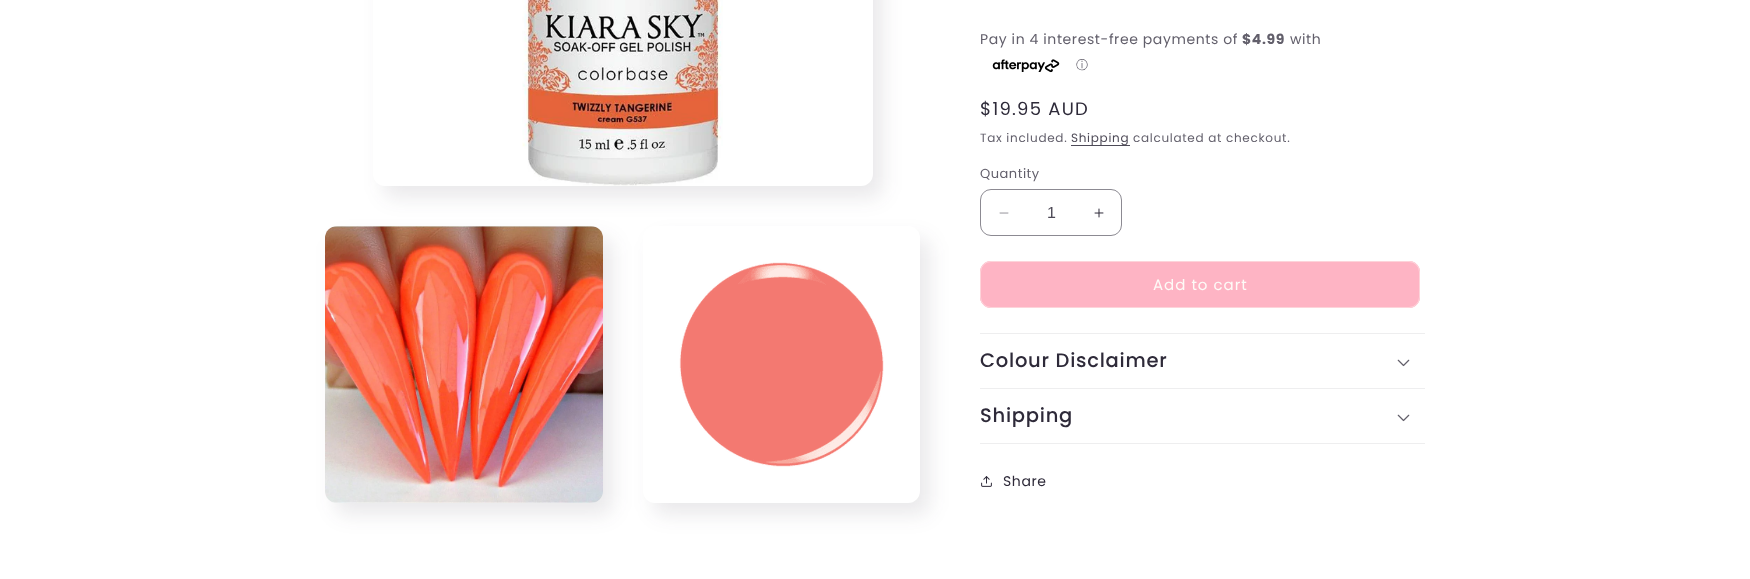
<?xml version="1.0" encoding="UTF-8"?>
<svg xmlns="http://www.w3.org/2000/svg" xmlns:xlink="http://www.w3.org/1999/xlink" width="1750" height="579">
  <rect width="100%" height="100%" fill="#ffffff" />
  <rect x="383" y="-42" width="500" height="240" rx="12" fill="#2e2a39" fill-opacity="0.1" filter="blur(10px)" />
  <rect x="373" y="-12" width="500" height="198" rx="12" fill="#ffffff" />
  <image x="522" y="0" width="201" height="186" xlink:href="image1.png" />
  <rect x="335" y="238" width="278" height="277" rx="12" fill="#2e2a39" fill-opacity="0.1" filter="blur(10px)" />
  <image x="325" y="226" width="278" height="277" xlink:href="image2.png" />
  <rect x="653" y="238" width="277" height="277" rx="12" fill="#2e2a39" fill-opacity="0.1" filter="blur(10px)" />
  <rect x="643" y="226" width="277" height="277" rx="12" fill="#ffffff" />
  <image x="679" y="262" width="205" height="205" xlink:href="image3.png" />
  <image x="992" y="59" width="68" height="14" xlink:href="image4.png" />
  <rect x="1071" y="145" width="59" height="1" fill="#4d4a57" />
  <image x="999" y="212" width="10" height="2" xlink:href="image5.png" />
  <image x="1094" y="208" width="10" height="10" xlink:href="image6.png" />
  <rect x="980.5" y="189.5" width="141" height="46" rx="10.5" fill="none" stroke="#8c8a92" />
  <rect x="980" y="261" width="440" height="47" rx="11" fill="#feb4c4" />
  <rect x="980.5" y="261.5" width="439" height="46" rx="10.5" fill="none" stroke="#feb4c4" />
  <rect x="980.5" y="261.5" width="439" height="46" rx="10.5" fill="none" stroke="#fdfbf7" stroke-opacity="0.45" />
  <rect x="980" y="333" width="445" height="1" fill="#eeeeef" />
  <rect x="980" y="388" width="445" height="1" fill="#eeeeef" />
  <image x="1397" y="359" width="13" height="8" xlink:href="image7.png" />
  <rect x="980" y="443" width="445" height="1" fill="#eeeeef" />
  <image x="1397" y="414" width="13" height="8" xlink:href="image7.png" />
  <image x="981" y="476" width="11" height="11" xlink:href="image8.png" />
  <text x="980" y="44" style="font-family: Poppins; font-size: 14px; letter-spacing: 0.6px; fill: #625f6b">Pay in 4 interest-free payments of</text>
  <text x="1242" y="44" style="font-family: Poppins; font-size: 14px; font-weight: bold; letter-spacing: 0.6px; fill: #625f6b">$4.99</text>
  <text x="1290" y="44" style="font-family: Poppins; font-size: 14px; letter-spacing: 0.6px; fill: #625f6b">with</text>
  <text x="1076" y="69" style="font-family: WenQuanYi Zen Hei; font-size: 12px; font-weight: 500; fill: #625f6b">ⓘ</text>
  <text x="980" y="115" style="font-family: Poppins; font-size: 18px; letter-spacing: 1.25px; fill: #2e2a39">$19.95 AUD</text>
  <text x="980" y="142" style="font-family: Poppins; font-size: 12px; letter-spacing: 0.7px; fill: #625f6b">Tax included.</text>
  <text x="1071" y="142" style="font-family: Poppins; font-size: 12px; letter-spacing: 0.7px; fill: #4d4956">Shipping</text>
  <text x="1133" y="142" style="font-family: Poppins; font-size: 12px; letter-spacing: 0.7px; fill: #625f6b">calculated at checkout.</text>
  <text x="980" y="178" style="font-family: Poppins; font-size: 13px; letter-spacing: 0.5px; fill: #625f6b">Quantity</text>
  <text x="1047" y="218" style="font-family: Liberation Sans; font-size: 16px; fill: #4d4956">1</text>
  <text x="1153" y="290" style="font-family: Poppins; font-size: 15px; letter-spacing: 1px; fill: #fdfbf7">Add to cart</text>
  <text x="980" y="367" style="font-family: Poppins; font-size: 19.5px; font-weight: 500; letter-spacing: 0.75px; fill: #2e2a39">Colour Disclaimer</text>
  <text x="980" y="422" style="font-family: Poppins; font-size: 19.5px; font-weight: 500; letter-spacing: 0.75px; fill: #2e2a39">Shipping</text>
  <text x="1003" y="486" style="font-family: Poppins; font-size: 14px; letter-spacing: 0.6px; fill: #2e2a39">Share</text>
</svg>
